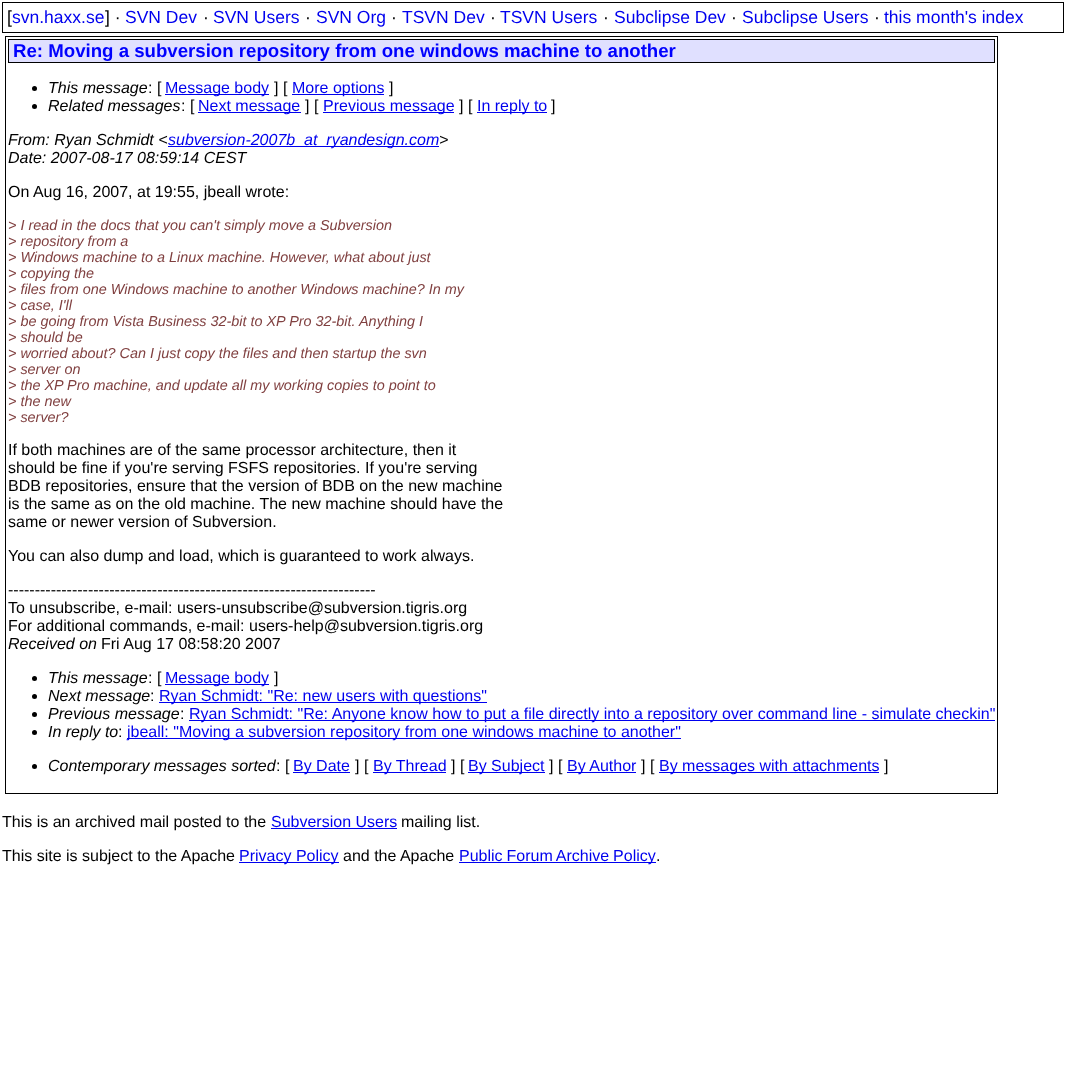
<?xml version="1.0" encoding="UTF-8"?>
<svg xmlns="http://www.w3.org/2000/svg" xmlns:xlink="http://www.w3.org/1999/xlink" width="1066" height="1072">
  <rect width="100%" height="100%" fill="#ffffff" />
  <rect x="2.5" y="2.5" width="1061" height="30" fill="none" stroke="#000000" />
  <rect x="5.5" y="36.5" width="992" height="757" fill="none" stroke="#000000" />
  <rect x="8.5" y="39.5" width="986" height="23" fill="#e0e0ff" stroke="#000000" />
  <circle cx="34.5" cy="88.5" r="2.5" fill="#000000" />
  <rect x="165" y="94" width="104" height="1" fill="#0000ee" />
  <rect x="292" y="94" width="92" height="1" fill="#0000ee" />
  <circle cx="34.5" cy="106.5" r="2.5" fill="#000000" />
  <rect x="198" y="112" width="103" height="1" fill="#0000ee" />
  <rect x="323" y="112" width="131" height="1" fill="#0000ee" />
  <rect x="477" y="112" width="70" height="1" fill="#0000ee" />
  <rect x="168" y="146" width="271" height="1" fill="#0000ee" />
  <circle cx="34.5" cy="678.5" r="2.5" fill="#000000" />
  <rect x="165" y="684" width="104" height="1" fill="#0000ee" />
  <circle cx="34.5" cy="696.5" r="2.5" fill="#000000" />
  <rect x="159" y="702" width="328" height="1" fill="#0000ee" />
  <circle cx="34.5" cy="714.5" r="2.5" fill="#000000" />
  <rect x="189" y="720" width="806" height="1" fill="#0000ee" />
  <circle cx="34.5" cy="732.5" r="2.5" fill="#000000" />
  <rect x="127" y="738" width="554" height="1" fill="#0000ee" />
  <circle cx="34.5" cy="766.5" r="2.5" fill="#000000" />
  <rect x="293" y="772" width="57" height="1" fill="#0000ee" />
  <rect x="373" y="772" width="73" height="1" fill="#0000ee" />
  <rect x="468" y="772" width="77" height="1" fill="#0000ee" />
  <rect x="567" y="772" width="69" height="1" fill="#0000ee" />
  <rect x="659" y="772" width="220" height="1" fill="#0000ee" />
  <rect x="271" y="828" width="126" height="1" fill="#0000ee" />
  <rect x="239" y="862" width="100" height="1" fill="#0000ee" />
  <rect x="459" y="862" width="197" height="1" fill="#0000ee" />
  <text x="7" y="23" style="font-family: Liberation Sans; font-size: 17.5px; fill: #000000">[</text>
  <text x="12" y="23" style="font-family: Liberation Sans; font-size: 17.5px; fill: #0000ee">svn.haxx.se</text>
  <text x="105" y="23" style="font-family: Liberation Sans; font-size: 17.5px; fill: #000000">] ·</text>
  <text x="125" y="23" style="font-family: Liberation Sans; font-size: 17.5px; fill: #0000ee">SVN Dev</text>
  <text x="203" y="23" style="font-family: Liberation Sans; font-size: 17.5px; fill: #000000">·</text>
  <text x="213" y="23" style="font-family: Liberation Sans; font-size: 17.5px; fill: #0000ee">SVN Users</text>
  <text x="305" y="23" style="font-family: Liberation Sans; font-size: 17.5px; fill: #000000">·</text>
  <text x="316" y="23" style="font-family: Liberation Sans; font-size: 17.5px; fill: #0000ee">SVN Org</text>
  <text x="391" y="23" style="font-family: Liberation Sans; font-size: 17.5px; fill: #000000">·</text>
  <text x="402" y="23" style="font-family: Liberation Sans; font-size: 17.5px; fill: #0000ee">TSVN Dev</text>
  <text x="490" y="23" style="font-family: Liberation Sans; font-size: 17.5px; fill: #000000">·</text>
  <text x="500" y="23" style="font-family: Liberation Sans; font-size: 17.5px; fill: #0000ee">TSVN Users</text>
  <text x="603" y="23" style="font-family: Liberation Sans; font-size: 17.5px; fill: #000000">·</text>
  <text x="614" y="23" style="font-family: Liberation Sans; font-size: 17.5px; fill: #0000ee">Subclipse Dev</text>
  <text x="731" y="23" style="font-family: Liberation Sans; font-size: 17.5px; fill: #000000">·</text>
  <text x="742" y="23" style="font-family: Liberation Sans; font-size: 17.5px; fill: #0000ee">Subclipse Users</text>
  <text x="874" y="23" style="font-family: Liberation Sans; font-size: 17.5px; fill: #000000">·</text>
  <text x="884" y="23" style="font-family: Liberation Sans; font-size: 17.5px; fill: #0000ee">this month's index</text>
  <text x="13" y="57" style="font-family: Liberation Sans; font-size: 18.65px; font-weight: bold; fill: #0000ff">Re: Moving a subversion repository from one windows machine to another</text>
  <text x="48" y="93" style="font-family: Liberation Sans; font-size: 16px; font-style: italic; fill: #000000">This message</text>
  <text x="148" y="93" style="font-family: Liberation Sans; font-size: 16px; fill: #000000">: [</text>
  <text x="165" y="93" style="font-family: Liberation Sans; font-size: 16px; fill: #0000ee">Message body</text>
  <text x="274" y="93" style="font-family: Liberation Sans; font-size: 16px; fill: #000000">] [</text>
  <text x="292" y="93" style="font-family: Liberation Sans; font-size: 16px; fill: #0000ee">More options</text>
  <text x="389" y="93" style="font-family: Liberation Sans; font-size: 16px; fill: #000000">]</text>
  <text x="48" y="111" style="font-family: Liberation Sans; font-size: 16px; font-style: italic; fill: #000000">Related messages</text>
  <text x="181" y="111" style="font-family: Liberation Sans; font-size: 16px; fill: #000000">: [</text>
  <text x="198" y="111" style="font-family: Liberation Sans; font-size: 16px; fill: #0000ee">Next message</text>
  <text x="305" y="111" style="font-family: Liberation Sans; font-size: 16px; fill: #000000">] [</text>
  <text x="323" y="111" style="font-family: Liberation Sans; font-size: 16px; fill: #0000ee">Previous message</text>
  <text x="459" y="111" style="font-family: Liberation Sans; font-size: 16px; fill: #000000">] [</text>
  <text x="477" y="111" style="font-family: Liberation Sans; font-size: 16px; fill: #0000ee">In reply to</text>
  <text x="551" y="111" style="font-family: Liberation Sans; font-size: 16px; fill: #000000">]</text>
  <text x="8" y="145" style="font-family: Liberation Sans; font-size: 16px; font-style: italic; fill: #000000">From: Ryan Schmidt &lt;</text>
  <text x="168" y="145" style="font-family: Liberation Sans; font-size: 16px; font-style: italic; fill: #0000ee">subversion-2007b_at_ryandesign.com</text>
  <text x="439" y="145" style="font-family: Liberation Sans; font-size: 16px; font-style: italic; fill: #000000">&gt;</text>
  <text x="8" y="163" style="font-family: Liberation Sans; font-size: 16px; font-style: italic; fill: #000000">Date: 2007-08-17 08:59:14 CEST</text>
  <text x="8" y="197" style="font-family: Liberation Sans; font-size: 16px; fill: #000000">On Aug 16, 2007, at 19:55, jbeall wrote:</text>
  <text x="8" y="230" style="font-family: Liberation Sans; font-size: 14.4px; font-style: italic; fill: #804040">&gt; I read in the docs that you can't simply move a Subversion</text>
  <text x="8" y="246" style="font-family: Liberation Sans; font-size: 14.4px; font-style: italic; fill: #804040">&gt; repository from a</text>
  <text x="8" y="262" style="font-family: Liberation Sans; font-size: 14.4px; font-style: italic; fill: #804040">&gt; Windows machine to a Linux machine. However, what about just</text>
  <text x="8" y="278" style="font-family: Liberation Sans; font-size: 14.4px; font-style: italic; fill: #804040">&gt; copying the</text>
  <text x="8" y="294" style="font-family: Liberation Sans; font-size: 14.4px; font-style: italic; fill: #804040">&gt; files from one Windows machine to another Windows machine? In my</text>
  <text x="8" y="310" style="font-family: Liberation Sans; font-size: 14.4px; font-style: italic; fill: #804040">&gt; case, I'll</text>
  <text x="8" y="326" style="font-family: Liberation Sans; font-size: 14.4px; font-style: italic; fill: #804040">&gt; be going from Vista Business 32-bit to XP Pro 32-bit. Anything I</text>
  <text x="8" y="342" style="font-family: Liberation Sans; font-size: 14.4px; font-style: italic; fill: #804040">&gt; should be</text>
  <text x="8" y="358" style="font-family: Liberation Sans; font-size: 14.4px; font-style: italic; fill: #804040">&gt; worried about? Can I just copy the files and then startup the svn</text>
  <text x="8" y="374" style="font-family: Liberation Sans; font-size: 14.4px; font-style: italic; fill: #804040">&gt; server on</text>
  <text x="8" y="390" style="font-family: Liberation Sans; font-size: 14.4px; font-style: italic; fill: #804040">&gt; the XP Pro machine, and update all my working copies to point to</text>
  <text x="8" y="406" style="font-family: Liberation Sans; font-size: 14.4px; font-style: italic; fill: #804040">&gt; the new</text>
  <text x="8" y="422" style="font-family: Liberation Sans; font-size: 14.4px; font-style: italic; fill: #804040">&gt; server?</text>
  <text x="8" y="455" style="font-family: Liberation Sans; font-size: 16px; fill: #000000">If both machines are of the same processor architecture, then it</text>
  <text x="8" y="473" style="font-family: Liberation Sans; font-size: 16px; fill: #000000">should be fine if you're serving FSFS repositories. If you're serving</text>
  <text x="8" y="491" style="font-family: Liberation Sans; font-size: 16px; fill: #000000">BDB repositories, ensure that the version of BDB on the new machine</text>
  <text x="8" y="509" style="font-family: Liberation Sans; font-size: 16px; fill: #000000">is the same as on the old machine. The new machine should have the</text>
  <text x="8" y="527" style="font-family: Liberation Sans; font-size: 16px; fill: #000000">same or newer version of Subversion.</text>
  <text x="8" y="561" style="font-family: Liberation Sans; font-size: 16px; fill: #000000">You can also dump and load, which is guaranteed to work always.</text>
  <text x="8" y="595" style="font-family: Liberation Sans; font-size: 16px; fill: #000000">---------------------------------------------------------------------</text>
  <text x="8" y="613" style="font-family: Liberation Sans; font-size: 16px; fill: #000000">To unsubscribe, e-mail: users-unsubscribe@subversion.tigris.org</text>
  <text x="8" y="631" style="font-family: Liberation Sans; font-size: 16px; fill: #000000">For additional commands, e-mail: users-help@subversion.tigris.org</text>
  <text x="8" y="649" style="font-family: Liberation Sans; font-size: 16px; font-style: italic; fill: #000000">Received on</text>
  <text x="101" y="649" style="font-family: Liberation Sans; font-size: 16px; fill: #000000">Fri Aug 17 08:58:20 2007</text>
  <text x="48" y="683" style="font-family: Liberation Sans; font-size: 16px; font-style: italic; fill: #000000">This message</text>
  <text x="148" y="683" style="font-family: Liberation Sans; font-size: 16px; fill: #000000">: [</text>
  <text x="165" y="683" style="font-family: Liberation Sans; font-size: 16px; fill: #0000ee">Message body</text>
  <text x="274" y="683" style="font-family: Liberation Sans; font-size: 16px; fill: #000000">]</text>
  <text x="48" y="701" style="font-family: Liberation Sans; font-size: 16px; font-style: italic; fill: #000000">Next message</text>
  <text x="150" y="701" style="font-family: Liberation Sans; font-size: 16px; fill: #000000">:</text>
  <text x="159" y="701" style="font-family: Liberation Sans; font-size: 16px; fill: #0000ee">Ryan Schmidt: "Re: new users with questions"</text>
  <text x="48" y="719" style="font-family: Liberation Sans; font-size: 16px; font-style: italic; fill: #000000">Previous message</text>
  <text x="180" y="719" style="font-family: Liberation Sans; font-size: 16px; fill: #000000">:</text>
  <text x="189" y="719" style="font-family: Liberation Sans; font-size: 16px; fill: #0000ee">Ryan Schmidt: "Re: Anyone know how to put a file directly into a repository over command line - simulate checkin"</text>
  <text x="48" y="737" style="font-family: Liberation Sans; font-size: 16px; font-style: italic; fill: #000000">In reply to</text>
  <text x="118" y="737" style="font-family: Liberation Sans; font-size: 16px; fill: #000000">:</text>
  <text x="127" y="737" style="font-family: Liberation Sans; font-size: 16px; fill: #0000ee">jbeall: "Moving a subversion repository from one windows machine to another"</text>
  <text x="48" y="771" style="font-family: Liberation Sans; font-size: 16px; font-style: italic; fill: #000000">Contemporary messages sorted</text>
  <text x="276" y="771" style="font-family: Liberation Sans; font-size: 16px; fill: #000000">: [</text>
  <text x="293" y="771" style="font-family: Liberation Sans; font-size: 16px; fill: #0000ee">By Date</text>
  <text x="355" y="771" style="font-family: Liberation Sans; font-size: 16px; fill: #000000">] [</text>
  <text x="373" y="771" style="font-family: Liberation Sans; font-size: 16px; fill: #0000ee">By Thread</text>
  <text x="451" y="771" style="font-family: Liberation Sans; font-size: 16px; fill: #000000">] [</text>
  <text x="468" y="771" style="font-family: Liberation Sans; font-size: 16px; fill: #0000ee">By Subject</text>
  <text x="549" y="771" style="font-family: Liberation Sans; font-size: 16px; fill: #000000">] [</text>
  <text x="567" y="771" style="font-family: Liberation Sans; font-size: 16px; fill: #0000ee">By Author</text>
  <text x="641" y="771" style="font-family: Liberation Sans; font-size: 16px; fill: #000000">] [</text>
  <text x="659" y="771" style="font-family: Liberation Sans; font-size: 16px; fill: #0000ee">By messages with attachments</text>
  <text x="884" y="771" style="font-family: Liberation Sans; font-size: 16px; fill: #000000">]</text>
  <text x="2" y="827" style="font-family: Liberation Sans; font-size: 16px; fill: #000000">This is an archived mail posted to the</text>
  <text x="271" y="827" style="font-family: Liberation Sans; font-size: 16px; fill: #0000ee">Subversion Users</text>
  <text x="401" y="827" style="font-family: Liberation Sans; font-size: 16px; fill: #000000">mailing list.</text>
  <text x="2" y="861" style="font-family: Liberation Sans; font-size: 16px; fill: #000000">This site is subject to the Apache</text>
  <text x="239" y="861" style="font-family: Liberation Sans; font-size: 16px; fill: #0000ee">Privacy Policy</text>
  <text x="343" y="861" style="font-family: Liberation Sans; font-size: 16px; fill: #000000">and the Apache</text>
  <text x="459" y="861" word-spacing="-0.5" style="font-family: Liberation Sans; font-size: 16px; fill: #0000ee">Public Forum Archive Policy</text>
  <text x="656" y="861" style="font-family: Liberation Sans; font-size: 16px; fill: #000000">.</text>
</svg>
